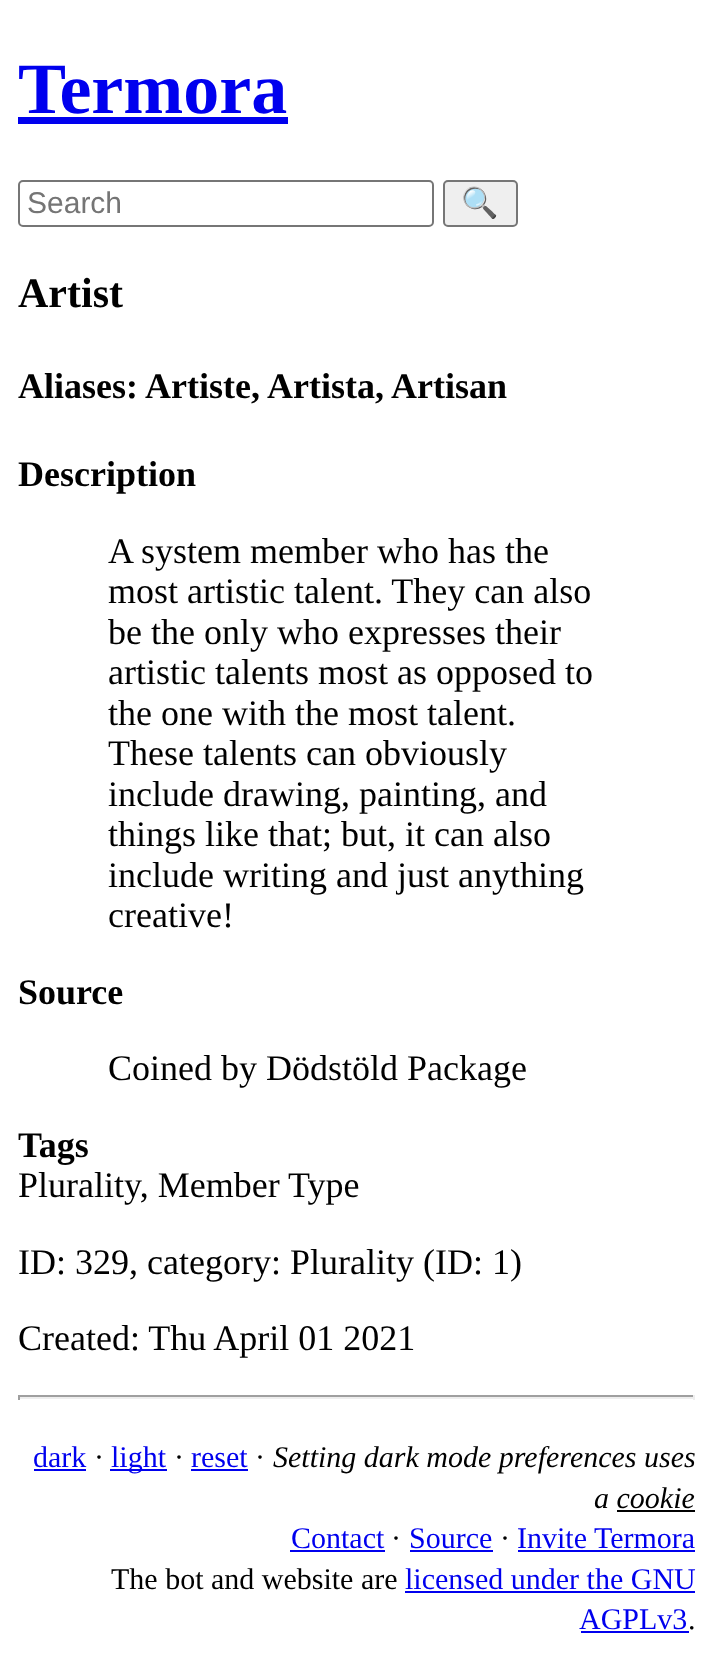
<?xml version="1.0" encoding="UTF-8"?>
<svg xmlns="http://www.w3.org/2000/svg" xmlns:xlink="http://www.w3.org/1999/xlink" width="713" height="1678">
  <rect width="100%" height="100%" fill="#ffffff" />
  <rect x="18" y="117" width="270" height="7" fill="#0000ee" />
  <rect x="19" y="181" width="414" height="45" rx="4" fill="none" stroke="#767676" stroke-width="2" />
  <rect x="444" y="181" width="73" height="45" rx="4" fill="#efefef" stroke="#767676" stroke-width="2" />
  <rect x="18" y="1395" width="677" height="2" fill="#9f9f9f" />
  <rect x="693" y="1395" width="2" height="5" fill="#eeeeee" />
  <rect x="18" y="1397" width="677" height="2" fill="#eeeeee" />
  <rect x="18" y="1395" width="2" height="5" fill="#9f9f9f" />
  <rect x="34" y="1469" width="52" height="2" fill="#0000ee" />
  <rect x="110" y="1469" width="57" height="2" fill="#0000ee" />
  <rect x="191" y="1469" width="57" height="2" fill="#0000ee" />
  <rect x="617" y="1510" width="78" height="2" fill="#000000" />
  <rect x="290" y="1550" width="95" height="2" fill="#0000ee" />
  <rect x="410" y="1550" width="83" height="2" fill="#0000ee" />
  <rect x="518" y="1550" width="177" height="2" fill="#0000ee" />
  <rect x="405" y="1591" width="290" height="2" fill="#0000ee" />
  <rect x="581" y="1631" width="108" height="2" fill="#0000ee" />
  <text x="18" y="113" style="font-family: Liberation Serif; font-size: 72px; font-weight: bold; fill: #0000ee">Termora</text>
  <text x="27" y="213" style="font-family: Liberation Sans; font-size: 30px; fill: #757575">Search</text>
  <text x="461" y="213" style="font-family: Noto Color Emoji; font-size: 30px; fill: #000000">🔍</text>
  <text x="18" y="307" style="font-family: Liberation Serif; font-size: 42px; font-weight: bold; fill: #000000">Artist</text>
  <text x="18" y="398" style="font-family: Liberation Serif; font-size: 36px; font-weight: bold; fill: #000000">Aliases: Artiste, Artista, Artisan</text>
  <text x="18" y="486" style="font-family: Liberation Serif; font-size: 36px; font-weight: bold; fill: #000000">Description</text>
  <text x="108" y="563" style="font-family: Liberation Serif; font-size: 36px; fill: #000000">A system member who has the</text>
  <text x="108" y="603" style="font-family: Liberation Serif; font-size: 36px; fill: #000000">most artistic talent. They can also</text>
  <text x="108" y="644" style="font-family: Liberation Serif; font-size: 36px; fill: #000000">be the only who expresses their</text>
  <text x="108" y="684" style="font-family: Liberation Serif; font-size: 36px; fill: #000000">artistic talents most as opposed to</text>
  <text x="108" y="725" style="font-family: Liberation Serif; font-size: 36px; fill: #000000">the one with the most talent.</text>
  <text x="108" y="765" style="font-family: Liberation Serif; font-size: 36px; fill: #000000">These talents can obviously</text>
  <text x="108" y="806" style="font-family: Liberation Serif; font-size: 36px; fill: #000000">include drawing, painting, and</text>
  <text x="108" y="846" style="font-family: Liberation Serif; font-size: 36px; fill: #000000">things like that; but, it can also</text>
  <text x="108" y="887" style="font-family: Liberation Serif; font-size: 36px; fill: #000000">include writing and just anything</text>
  <text x="108" y="927" style="font-family: Liberation Serif; font-size: 36px; fill: #000000">creative!</text>
  <text x="18" y="1004" style="font-family: Liberation Serif; font-size: 36px; font-weight: bold; fill: #000000">Source</text>
  <text x="108" y="1080" style="font-family: Liberation Serif; font-size: 36px; fill: #000000">Coined by Dödstöld Package</text>
  <text x="18" y="1157" style="font-family: Liberation Serif; font-size: 36px; font-weight: bold; fill: #000000">Tags</text>
  <text x="18" y="1197" style="font-family: Liberation Serif; font-size: 36px; fill: #000000">Plurality, Member Type</text>
  <text x="18" y="1274" style="font-family: Liberation Serif; font-size: 36px; fill: #000000">ID: 329, category: Plurality (ID: 1)</text>
  <text x="18" y="1350" style="font-family: Liberation Serif; font-size: 36px; fill: #000000">Created: Thu April 01 2021</text>
  <text x="33" y="1467" style="font-family: Liberation Serif; font-size: 30px; fill: #0000ee">dark</text>
  <text x="94" y="1467" style="font-family: Liberation Serif; font-size: 30px; fill: #000000">·</text>
  <text x="111" y="1467" style="font-family: Liberation Serif; font-size: 30px; fill: #0000ee">light</text>
  <text x="174" y="1467" style="font-family: Liberation Serif; font-size: 30px; fill: #000000">·</text>
  <text x="191" y="1467" style="font-family: Liberation Serif; font-size: 30px; fill: #0000ee">reset</text>
  <text x="255" y="1467" style="font-family: Liberation Serif; font-size: 30px; fill: #000000">·</text>
  <text x="273" y="1467" style="font-family: Liberation Serif; font-size: 30px; font-style: italic; fill: #000000">Setting dark mode preferences uses</text>
  <text x="594" y="1508" style="font-family: Liberation Serif; font-size: 30px; font-style: italic; fill: #000000">a cookie</text>
  <text x="291" y="1548" style="font-family: Liberation Serif; font-size: 30px; fill: #0000ee">Contact</text>
  <text x="391" y="1548" style="font-family: Liberation Serif; font-size: 30px; fill: #000000">·</text>
  <text x="409" y="1548" style="font-family: Liberation Serif; font-size: 30px; fill: #0000ee">Source</text>
  <text x="500" y="1548" style="font-family: Liberation Serif; font-size: 30px; fill: #000000">·</text>
  <text x="517" y="1548" style="font-family: Liberation Serif; font-size: 30px; fill: #0000ee">Invite Termora</text>
  <text x="111" y="1589" style="font-family: Liberation Serif; font-size: 30px; fill: #000000">The bot and website are</text>
  <text x="405" y="1589" style="font-family: Liberation Serif; font-size: 30px; fill: #0000ee">licensed under the GNU</text>
  <text x="579" y="1629" style="font-family: Liberation Serif; font-size: 30px; fill: #0000ee">AGPLv3</text>
  <text x="688" y="1629" style="font-family: Liberation Serif; font-size: 30px; fill: #000000">.</text>
</svg>
